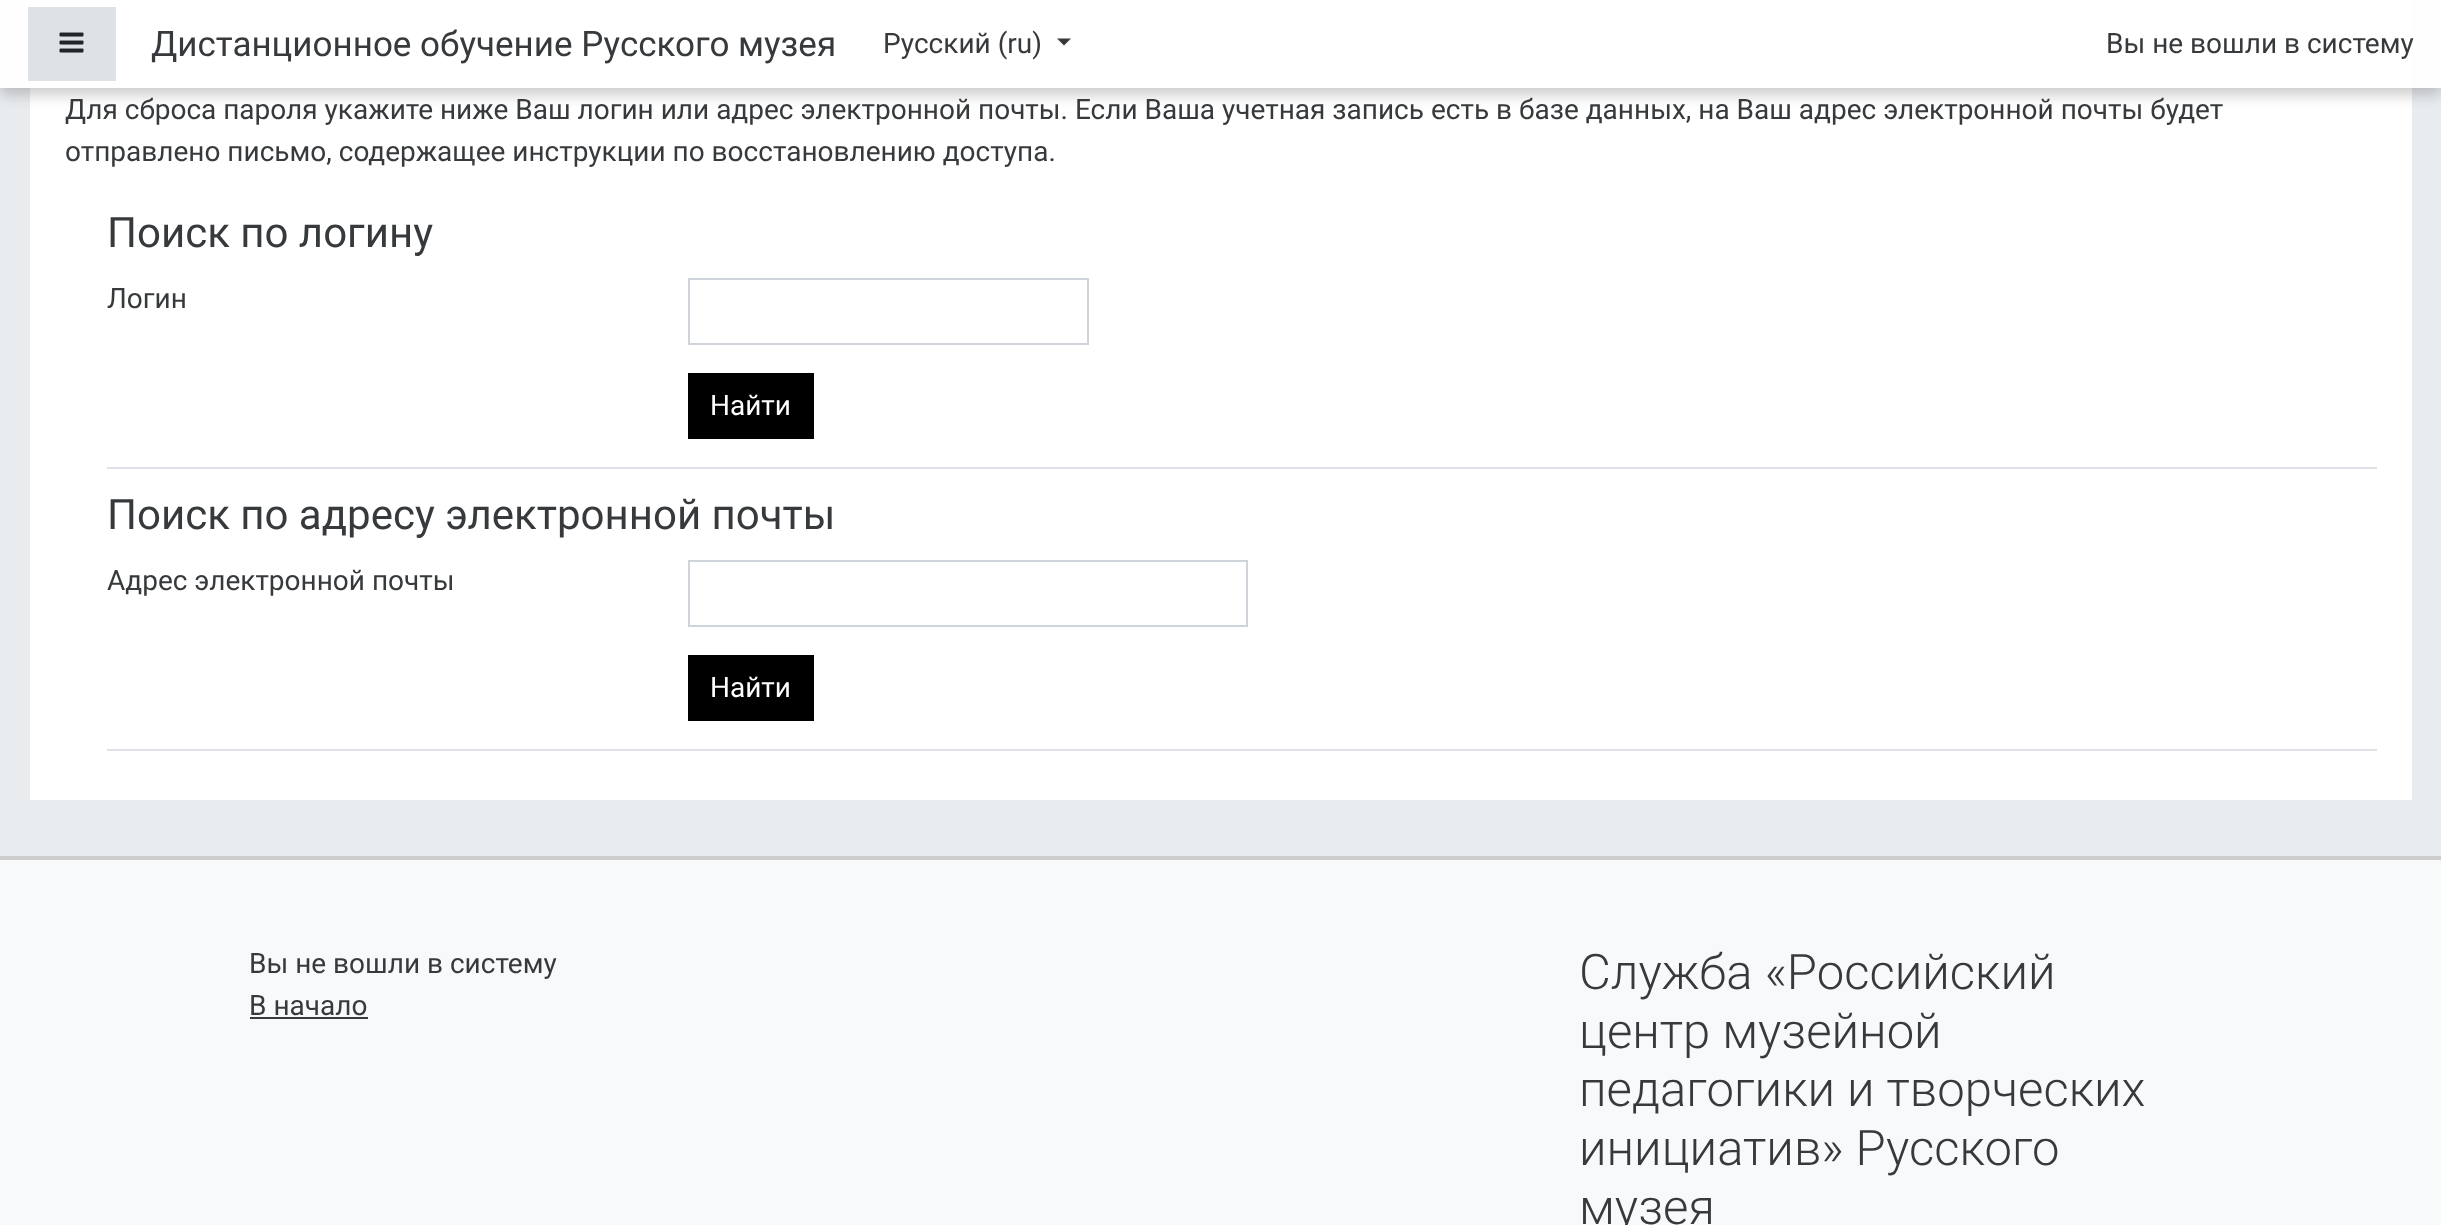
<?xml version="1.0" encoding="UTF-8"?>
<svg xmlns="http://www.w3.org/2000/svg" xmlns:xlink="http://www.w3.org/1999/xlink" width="2441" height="1225">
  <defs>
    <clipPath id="clip1"><path d="M 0 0 h 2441 v 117 h -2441 z m 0 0 h 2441 v 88 h -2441 z" clip-rule="evenodd" /></clipPath>
  </defs>
  <rect width="100%" height="100%" fill="#e9ecef" />
  <rect x="30" width="2382" height="800" fill="#ffffff" />
  <g clip-path="url(#clip1)">
    <rect y="7" width="2441" height="88" fill="#000000" fill-opacity="0.2" filter="blur(7px)" />
  </g>
  <rect width="2441" height="88" fill="#ffffff" fill-opacity="0.95" />
  <rect x="28" y="7" width="88" height="74" fill="#dee2e6" />
  <image x="59" y="32" width="25" height="21" xlink:href="image1.png" />
  <path d="M 1057 38.5 h 14 l -7 7 z" fill="#373a3c" />
  <rect x="107" y="467" width="2270" height="2" fill="#dee2e6" />
  <rect x="689" y="279" width="399" height="65" fill="none" stroke="#ced4da" stroke-width="2" />
  <rect x="688" y="373" width="126" height="66" fill="#000000" />
  <rect x="107" y="749" width="2270" height="2" fill="#dee2e6" />
  <rect x="689" y="561" width="558" height="65" fill="none" stroke="#ced4da" stroke-width="2" />
  <rect x="688" y="655" width="126" height="66" fill="#000000" />
  <rect y="860" width="2441" height="365" fill="#f8f9fa" />
  <rect y="856" width="2441" height="4" fill="#cccccc" />
  <rect x="250" y="1017" width="118" height="2" fill="#373a3c" />
  <text x="151" y="56" style="font-family: Roboto; font-size: 35px; fill: #373a3c">Дистанционное обучение Русского музея</text>
  <text x="883" y="53" style="font-family: Roboto; font-size: 28px; fill: #373a3c">Русский (ru)</text>
  <text x="2106" y="53" style="font-family: Roboto; font-size: 28px; fill: #373a3c">Вы не вошли в систему</text>
  <text x="65" y="119" style="font-family: Roboto; font-size: 28px; fill: #373a3c">Для сброса пароля укажите ниже Ваш логин или адрес электронной почты. Если Ваша учетная запись есть в базе данных, на Ваш адрес электронной почты будет</text>
  <text x="65" y="161" style="font-family: Roboto; font-size: 28px; fill: #373a3c">отправлено письмо, содержащее инструкции по восстановлению доступа.</text>
  <text x="107" y="247" style="font-family: Roboto; font-size: 42px; fill: #373a3c">Поиск по логину</text>
  <text x="107" y="308" style="font-family: Roboto; font-size: 28px; fill: #373a3c">Логин</text>
  <text x="710" y="415" style="font-family: Roboto; font-size: 28px; fill: #ffffff">Найти</text>
  <text x="107" y="529" style="font-family: Roboto; font-size: 42px; fill: #373a3c">Поиск по адресу электронной почты</text>
  <text x="107" y="590" style="font-family: Roboto; font-size: 28px; fill: #373a3c">Адрес электронной почты</text>
  <text x="710" y="697" style="font-family: Roboto; font-size: 28px; fill: #ffffff">Найти</text>
  <text x="249" y="973" style="font-family: Roboto; font-size: 28px; fill: #373a3c">Вы не вошли в систему</text>
  <text x="249" y="1015" style="font-family: Roboto; font-size: 28px; fill: #373a3c">В начало</text>
  <text x="1579" y="989" style="font-family: Roboto; font-size: 49px; font-weight: 300; fill: #373a3c">Служба «Российский</text>
  <text x="1579" y="1048" style="font-family: Roboto; font-size: 49px; font-weight: 300; fill: #373a3c">центр музейной</text>
  <text x="1579" y="1106" style="font-family: Roboto; font-size: 49px; font-weight: 300; fill: #373a3c">педагогики и творческих</text>
  <text x="1579" y="1165" style="font-family: Roboto; font-size: 49px; font-weight: 300; fill: #373a3c">инициатив» Русского</text>
  <text x="1579" y="1224" style="font-family: Roboto; font-size: 49px; font-weight: 300; fill: #373a3c">музея</text>
</svg>
